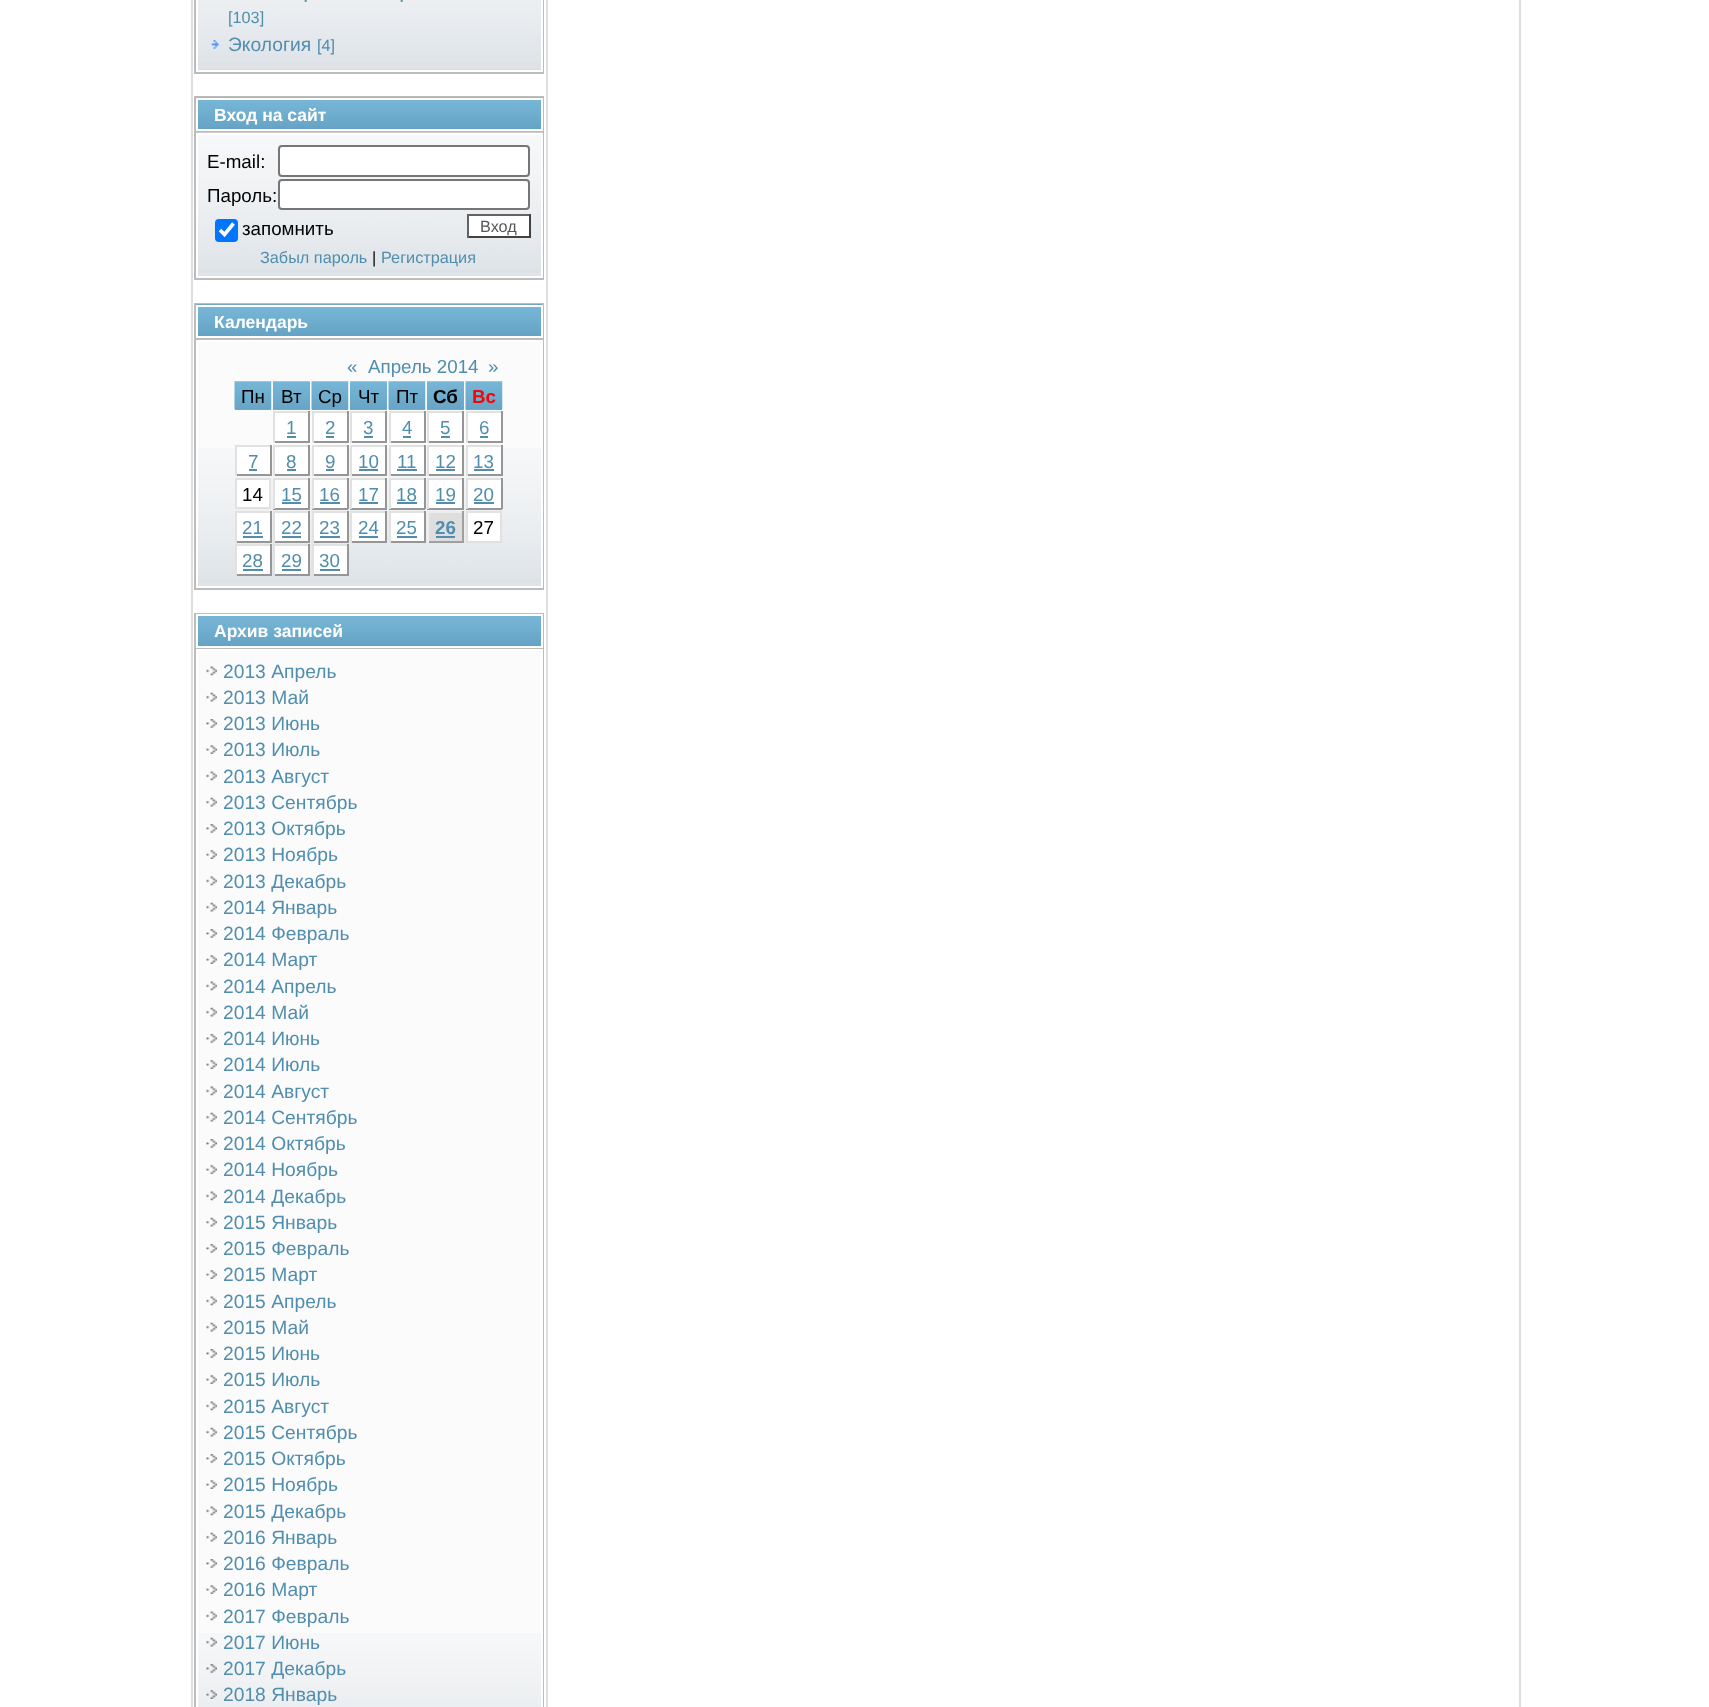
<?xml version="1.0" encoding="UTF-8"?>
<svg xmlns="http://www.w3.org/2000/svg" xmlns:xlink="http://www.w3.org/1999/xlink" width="1709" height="1707">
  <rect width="100%" height="100%" fill="#ffffff" />
  <rect x="1519" width="2" height="1707" fill="#dedede" />
  <rect x="191" width="2" height="1707" fill="#dedede" />
  <rect x="194" width="350" height="74" fill="#bcbcbc" />
  <image x="198" y="0" width="343" height="70" xlink:href="image1.png" />
  <rect x="197" y="-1" width="345" height="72" fill="none" stroke="#ffffff" stroke-width="2" />
  <image x="211" y="40" width="8" height="9" xlink:href="image2.png" />
  <rect x="194" y="96" width="350" height="184" fill="#bcbcbc" />
  <image x="196" y="97" width="347" height="32" xlink:href="image3.png" />
  <rect x="197" y="99" width="345" height="31" fill="none" stroke="#ffffff" stroke-width="2" />
  <image x="196" y="132" width="347" height="144" xlink:href="image4.png" />
  <rect x="197" y="134" width="345" height="143" fill="none" stroke="#ffffff" stroke-width="2" />
  <rect x="279" y="146" width="250" height="30" rx="3" fill="#ffffff" stroke="#767676" stroke-width="2" />
  <rect x="279" y="180" width="250" height="29" rx="3" fill="#ffffff" stroke="#767676" stroke-width="2" />
  <rect x="215" y="219" width="23" height="23" rx="4" fill="#0075ff" />
  <path d="M 220 230 l 4.5 4.5 l 9 -11" fill="none" stroke="#ffffff" stroke-width="3.6" />
  <rect x="469" y="216" width="60" height="20" fill="#ffffff" />
  <rect x="467" y="214" width="63" height="2" fill="#636363" />
  <rect x="529" y="214" width="2" height="24" fill="#424242" />
  <rect x="467" y="236" width="63" height="2" fill="#424242" />
  <rect x="467" y="214" width="2" height="24" fill="#636363" />
  <rect x="194" y="303" width="350" height="287" fill="#bcbcbc" />
  <image x="196" y="304" width="347" height="32" xlink:href="image5.png" />
  <rect x="197" y="306" width="345" height="31" fill="none" stroke="#ffffff" stroke-width="2" />
  <rect x="198" y="342" width="343" height="106" fill="#fbfbfc" />
  <image x="198" y="448" width="343" height="138" xlink:href="image6.png" />
  <rect x="197" y="341" width="345" height="246" fill="none" stroke="#ffffff" stroke-width="2" />
  <rect x="235" y="409" width="36" height="1" fill="#6eacce" />
  <image x="234" y="381" width="38" height="29" xlink:href="image7.png" />
  <rect x="273" y="382" width="37" height="28" fill="#6eacce" />
  <image x="273" y="381" width="37" height="28" xlink:href="image8.png" />
  <rect x="312" y="409" width="36" height="1" fill="#6eacce" />
  <image x="311" y="381" width="38" height="29" xlink:href="image7.png" />
  <rect x="350" y="382" width="37" height="28" fill="#6eacce" />
  <image x="350" y="381" width="37" height="28" xlink:href="image8.png" />
  <rect x="389" y="409" width="36" height="1" fill="#6eacce" />
  <image x="388" y="381" width="38" height="29" xlink:href="image7.png" />
  <rect x="427" y="382" width="37" height="28" fill="#6eacce" />
  <image x="427" y="381" width="37" height="28" xlink:href="image8.png" />
  <rect x="466" y="409" width="36" height="1" fill="#6eacce" />
  <image x="465" y="381" width="38" height="29" xlink:href="image7.png" />
  <rect x="275" y="413" width="33" height="28" fill="#ffffff" />
  <rect x="273" y="411" width="37" height="2" fill="#e1e1e1" />
  <rect x="308" y="411" width="2" height="32" fill="#969696" />
  <rect x="273" y="441" width="37" height="2" fill="#969696" />
  <rect x="273" y="411" width="2" height="32" fill="#e1e1e1" />
  <rect x="287" y="436" width="9" height="2" fill="#518ead" />
  <rect x="314" y="413" width="33" height="28" fill="#ffffff" />
  <rect x="312" y="411" width="36" height="2" fill="#e1e1e1" />
  <rect x="347" y="411" width="2" height="32" fill="#969696" />
  <rect x="312" y="441" width="36" height="2" fill="#969696" />
  <rect x="312" y="411" width="2" height="32" fill="#e1e1e1" />
  <rect x="326" y="436" width="8" height="2" fill="#518ead" />
  <rect x="352" y="413" width="33" height="28" fill="#ffffff" />
  <rect x="350" y="411" width="37" height="2" fill="#e1e1e1" />
  <rect x="385" y="411" width="2" height="32" fill="#969696" />
  <rect x="350" y="441" width="37" height="2" fill="#969696" />
  <rect x="350" y="411" width="2" height="32" fill="#e1e1e1" />
  <rect x="364" y="436" width="9" height="2" fill="#518ead" />
  <rect x="391" y="413" width="33" height="28" fill="#ffffff" />
  <rect x="389" y="411" width="36" height="2" fill="#e1e1e1" />
  <rect x="424" y="411" width="2" height="32" fill="#969696" />
  <rect x="389" y="441" width="36" height="2" fill="#969696" />
  <rect x="389" y="411" width="2" height="32" fill="#e1e1e1" />
  <rect x="403" y="436" width="8" height="2" fill="#518ead" />
  <rect x="429" y="413" width="33" height="28" fill="#ffffff" />
  <rect x="427" y="411" width="37" height="2" fill="#e1e1e1" />
  <rect x="462" y="411" width="2" height="32" fill="#969696" />
  <rect x="427" y="441" width="37" height="2" fill="#969696" />
  <rect x="427" y="411" width="2" height="32" fill="#e1e1e1" />
  <rect x="441" y="436" width="9" height="2" fill="#518ead" />
  <rect x="468" y="413" width="33" height="28" fill="#ffffff" />
  <rect x="466" y="411" width="36" height="2" fill="#e1e1e1" />
  <rect x="501" y="411" width="2" height="32" fill="#969696" />
  <rect x="466" y="441" width="36" height="2" fill="#969696" />
  <rect x="466" y="411" width="2" height="32" fill="#e1e1e1" />
  <rect x="480" y="436" width="8" height="2" fill="#518ead" />
  <rect x="237" y="447" width="33" height="27" fill="#ffffff" />
  <rect x="235" y="445" width="36" height="2" fill="#e1e1e1" />
  <rect x="270" y="445" width="2" height="31" fill="#969696" />
  <rect x="235" y="474" width="36" height="2" fill="#969696" />
  <rect x="235" y="445" width="2" height="31" fill="#e1e1e1" />
  <rect x="249" y="469" width="8" height="2" fill="#518ead" />
  <rect x="275" y="447" width="33" height="27" fill="#ffffff" />
  <rect x="273" y="445" width="37" height="2" fill="#e1e1e1" />
  <rect x="308" y="445" width="2" height="31" fill="#969696" />
  <rect x="273" y="474" width="37" height="2" fill="#969696" />
  <rect x="273" y="445" width="2" height="31" fill="#e1e1e1" />
  <rect x="287" y="469" width="9" height="2" fill="#518ead" />
  <rect x="314" y="447" width="33" height="27" fill="#ffffff" />
  <rect x="312" y="445" width="36" height="2" fill="#e1e1e1" />
  <rect x="347" y="445" width="2" height="31" fill="#969696" />
  <rect x="312" y="474" width="36" height="2" fill="#969696" />
  <rect x="312" y="445" width="2" height="31" fill="#e1e1e1" />
  <rect x="326" y="469" width="8" height="2" fill="#518ead" />
  <rect x="352" y="447" width="33" height="27" fill="#ffffff" />
  <rect x="350" y="445" width="37" height="2" fill="#e1e1e1" />
  <rect x="385" y="445" width="2" height="31" fill="#969696" />
  <rect x="350" y="474" width="37" height="2" fill="#969696" />
  <rect x="350" y="445" width="2" height="31" fill="#e1e1e1" />
  <rect x="359" y="469" width="19" height="2" fill="#518ead" />
  <rect x="391" y="447" width="33" height="27" fill="#ffffff" />
  <rect x="389" y="445" width="36" height="2" fill="#e1e1e1" />
  <rect x="424" y="445" width="2" height="31" fill="#969696" />
  <rect x="389" y="474" width="36" height="2" fill="#969696" />
  <rect x="389" y="445" width="2" height="31" fill="#e1e1e1" />
  <rect x="397" y="469" width="20" height="2" fill="#518ead" />
  <rect x="429" y="447" width="33" height="27" fill="#ffffff" />
  <rect x="427" y="445" width="37" height="2" fill="#e1e1e1" />
  <rect x="462" y="445" width="2" height="31" fill="#969696" />
  <rect x="427" y="474" width="37" height="2" fill="#969696" />
  <rect x="427" y="445" width="2" height="31" fill="#e1e1e1" />
  <rect x="436" y="469" width="19" height="2" fill="#518ead" />
  <rect x="468" y="447" width="33" height="27" fill="#ffffff" />
  <rect x="466" y="445" width="36" height="2" fill="#e1e1e1" />
  <rect x="501" y="445" width="2" height="31" fill="#969696" />
  <rect x="466" y="474" width="36" height="2" fill="#969696" />
  <rect x="466" y="445" width="2" height="31" fill="#e1e1e1" />
  <rect x="474" y="469" width="20" height="2" fill="#518ead" />
  <rect x="236" y="479" width="34" height="29" fill="#ffffff" stroke="#e1e1e1" stroke-width="2" />
  <rect x="275" y="480" width="33" height="28" fill="#ffffff" />
  <rect x="273" y="478" width="37" height="2" fill="#e1e1e1" />
  <rect x="308" y="478" width="2" height="31" fill="#969696" />
  <rect x="273" y="508" width="37" height="2" fill="#969696" />
  <rect x="273" y="478" width="2" height="31" fill="#e1e1e1" />
  <rect x="282" y="502" width="19" height="2" fill="#518ead" />
  <rect x="314" y="480" width="33" height="28" fill="#ffffff" />
  <rect x="312" y="478" width="36" height="2" fill="#e1e1e1" />
  <rect x="347" y="478" width="2" height="31" fill="#969696" />
  <rect x="312" y="508" width="36" height="2" fill="#969696" />
  <rect x="312" y="478" width="2" height="31" fill="#e1e1e1" />
  <rect x="320" y="502" width="20" height="2" fill="#518ead" />
  <rect x="352" y="480" width="33" height="28" fill="#ffffff" />
  <rect x="350" y="478" width="37" height="2" fill="#e1e1e1" />
  <rect x="385" y="478" width="2" height="31" fill="#969696" />
  <rect x="350" y="508" width="37" height="2" fill="#969696" />
  <rect x="350" y="478" width="2" height="31" fill="#e1e1e1" />
  <rect x="359" y="502" width="19" height="2" fill="#518ead" />
  <rect x="391" y="480" width="33" height="28" fill="#ffffff" />
  <rect x="389" y="478" width="36" height="2" fill="#e1e1e1" />
  <rect x="424" y="478" width="2" height="31" fill="#969696" />
  <rect x="389" y="508" width="36" height="2" fill="#969696" />
  <rect x="389" y="478" width="2" height="31" fill="#e1e1e1" />
  <rect x="397" y="502" width="20" height="2" fill="#518ead" />
  <rect x="429" y="480" width="33" height="28" fill="#ffffff" />
  <rect x="427" y="478" width="37" height="2" fill="#e1e1e1" />
  <rect x="462" y="478" width="2" height="31" fill="#969696" />
  <rect x="427" y="508" width="37" height="2" fill="#969696" />
  <rect x="427" y="478" width="2" height="31" fill="#e1e1e1" />
  <rect x="436" y="502" width="19" height="2" fill="#518ead" />
  <rect x="468" y="480" width="33" height="28" fill="#ffffff" />
  <rect x="466" y="478" width="36" height="2" fill="#e1e1e1" />
  <rect x="501" y="478" width="2" height="31" fill="#969696" />
  <rect x="466" y="508" width="36" height="2" fill="#969696" />
  <rect x="466" y="478" width="2" height="31" fill="#e1e1e1" />
  <rect x="474" y="502" width="20" height="2" fill="#518ead" />
  <rect x="237" y="513" width="33" height="28" fill="#ffffff" />
  <rect x="235" y="511" width="36" height="2" fill="#e1e1e1" />
  <rect x="270" y="511" width="2" height="32" fill="#969696" />
  <rect x="235" y="541" width="36" height="2" fill="#969696" />
  <rect x="235" y="511" width="2" height="32" fill="#e1e1e1" />
  <rect x="243" y="536" width="20" height="2" fill="#518ead" />
  <rect x="275" y="513" width="33" height="28" fill="#ffffff" />
  <rect x="273" y="511" width="37" height="2" fill="#e1e1e1" />
  <rect x="308" y="511" width="2" height="32" fill="#969696" />
  <rect x="273" y="541" width="37" height="2" fill="#969696" />
  <rect x="273" y="511" width="2" height="32" fill="#e1e1e1" />
  <rect x="282" y="536" width="19" height="2" fill="#518ead" />
  <rect x="314" y="513" width="33" height="28" fill="#ffffff" />
  <rect x="312" y="511" width="36" height="2" fill="#e1e1e1" />
  <rect x="347" y="511" width="2" height="32" fill="#969696" />
  <rect x="312" y="541" width="36" height="2" fill="#969696" />
  <rect x="312" y="511" width="2" height="32" fill="#e1e1e1" />
  <rect x="320" y="536" width="20" height="2" fill="#518ead" />
  <rect x="352" y="513" width="33" height="28" fill="#ffffff" />
  <rect x="350" y="511" width="37" height="2" fill="#e1e1e1" />
  <rect x="385" y="511" width="2" height="32" fill="#969696" />
  <rect x="350" y="541" width="37" height="2" fill="#969696" />
  <rect x="350" y="511" width="2" height="32" fill="#e1e1e1" />
  <rect x="359" y="536" width="19" height="2" fill="#518ead" />
  <rect x="391" y="513" width="33" height="28" fill="#ffffff" />
  <rect x="389" y="511" width="36" height="2" fill="#e1e1e1" />
  <rect x="424" y="511" width="2" height="32" fill="#969696" />
  <rect x="389" y="541" width="36" height="2" fill="#969696" />
  <rect x="389" y="511" width="2" height="32" fill="#e1e1e1" />
  <rect x="397" y="536" width="20" height="2" fill="#518ead" />
  <rect x="429" y="513" width="33" height="28" fill="#dedede" />
  <rect x="427" y="511" width="37" height="2" fill="#eeeeee" />
  <rect x="462" y="511" width="2" height="32" fill="#9f9f9f" />
  <rect x="427" y="541" width="37" height="2" fill="#9f9f9f" />
  <rect x="427" y="511" width="2" height="32" fill="#eeeeee" />
  <rect x="436" y="536" width="19" height="2" fill="#518ead" />
  <rect x="467" y="512" width="34" height="30" fill="#ffffff" stroke="#e1e1e1" stroke-width="2" />
  <rect x="237" y="546" width="33" height="28" fill="#ffffff" />
  <rect x="235" y="544" width="36" height="2" fill="#e1e1e1" />
  <rect x="270" y="544" width="2" height="32" fill="#969696" />
  <rect x="235" y="574" width="36" height="2" fill="#969696" />
  <rect x="235" y="544" width="2" height="32" fill="#e1e1e1" />
  <rect x="243" y="569" width="20" height="2" fill="#518ead" />
  <rect x="275" y="546" width="33" height="28" fill="#ffffff" />
  <rect x="273" y="544" width="37" height="2" fill="#e1e1e1" />
  <rect x="308" y="544" width="2" height="32" fill="#969696" />
  <rect x="273" y="574" width="37" height="2" fill="#969696" />
  <rect x="273" y="544" width="2" height="32" fill="#e1e1e1" />
  <rect x="282" y="569" width="19" height="2" fill="#518ead" />
  <rect x="314" y="546" width="33" height="28" fill="#ffffff" />
  <rect x="312" y="544" width="36" height="2" fill="#e1e1e1" />
  <rect x="347" y="544" width="2" height="32" fill="#969696" />
  <rect x="312" y="574" width="36" height="2" fill="#969696" />
  <rect x="312" y="544" width="2" height="32" fill="#e1e1e1" />
  <rect x="320" y="569" width="20" height="2" fill="#518ead" />
  <rect x="194" y="613" width="350" height="1094" fill="#bcbcbc" />
  <image x="198" y="616" width="343" height="30" xlink:href="image9.png" />
  <rect x="197" y="615" width="345" height="32" fill="none" stroke="#ffffff" stroke-width="2" />
  <rect x="198" y="651" width="343" height="982" fill="#fbfbfc" />
  <image x="198" y="1633" width="343" height="74" xlink:href="image10.png" />
  <rect x="197" y="650" width="345" height="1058" fill="none" stroke="#ffffff" stroke-width="2" />
  <image x="206" y="666" width="11" height="10" xlink:href="image11.png" />
  <image x="206" y="692" width="11" height="10" xlink:href="image12.png" />
  <image x="206" y="719" width="11" height="9" xlink:href="image13.png" />
  <image x="206" y="745" width="11" height="9" xlink:href="image14.png" />
  <image x="206" y="771" width="11" height="10" xlink:href="image11.png" />
  <image x="206" y="797" width="11" height="10" xlink:href="image12.png" />
  <image x="206" y="824" width="11" height="9" xlink:href="image13.png" />
  <image x="206" y="850" width="11" height="9" xlink:href="image14.png" />
  <image x="206" y="876" width="11" height="10" xlink:href="image11.png" />
  <image x="206" y="902" width="11" height="10" xlink:href="image12.png" />
  <image x="206" y="929" width="11" height="9" xlink:href="image13.png" />
  <image x="206" y="955" width="11" height="9" xlink:href="image14.png" />
  <image x="206" y="981" width="11" height="10" xlink:href="image11.png" />
  <image x="206" y="1007" width="11" height="10" xlink:href="image12.png" />
  <image x="206" y="1034" width="11" height="9" xlink:href="image13.png" />
  <image x="206" y="1060" width="11" height="9" xlink:href="image14.png" />
  <image x="206" y="1086" width="11" height="10" xlink:href="image11.png" />
  <image x="206" y="1112" width="11" height="10" xlink:href="image12.png" />
  <image x="206" y="1139" width="11" height="9" xlink:href="image13.png" />
  <image x="206" y="1165" width="11" height="9" xlink:href="image14.png" />
  <image x="206" y="1191" width="11" height="10" xlink:href="image11.png" />
  <image x="206" y="1217" width="11" height="10" xlink:href="image12.png" />
  <image x="206" y="1244" width="11" height="9" xlink:href="image13.png" />
  <image x="206" y="1270" width="11" height="9" xlink:href="image14.png" />
  <image x="206" y="1296" width="11" height="10" xlink:href="image11.png" />
  <image x="206" y="1322" width="11" height="10" xlink:href="image12.png" />
  <image x="206" y="1349" width="11" height="9" xlink:href="image13.png" />
  <image x="206" y="1375" width="11" height="9" xlink:href="image14.png" />
  <image x="206" y="1401" width="11" height="10" xlink:href="image11.png" />
  <image x="206" y="1427" width="11" height="10" xlink:href="image12.png" />
  <image x="206" y="1454" width="11" height="9" xlink:href="image13.png" />
  <image x="206" y="1480" width="11" height="9" xlink:href="image14.png" />
  <image x="206" y="1506" width="11" height="10" xlink:href="image11.png" />
  <image x="206" y="1532" width="11" height="10" xlink:href="image12.png" />
  <image x="206" y="1559" width="11" height="9" xlink:href="image13.png" />
  <image x="206" y="1585" width="11" height="9" xlink:href="image14.png" />
  <image x="206" y="1611" width="11" height="10" xlink:href="image11.png" />
  <image x="206" y="1637" width="11" height="10" xlink:href="image15.png" />
  <image x="206" y="1664" width="11" height="9" xlink:href="image16.png" />
  <image x="206" y="1690" width="11" height="9" xlink:href="image17.png" />
  <rect x="546" width="2" height="1707" fill="#dedede" />
  <text x="303" y="2" style="font-family: Liberation Sans; font-size: 19.25px; fill: #518ead">.</text>
  <text x="399" y="2" style="font-family: Liberation Sans; font-size: 19.25px; fill: #518ead">.</text>
  <text x="228" y="23" style="font-family: Liberation Sans; font-size: 16.25px; fill: #518ead">[103]</text>
  <text x="228" y="51" style="font-family: Liberation Sans; font-size: 19.25px; fill: #518ead">Экология</text>
  <text x="317" y="51" style="font-family: Liberation Sans; font-size: 16.25px; fill: #518ead">[4]</text>
  <text x="214" y="121" style="font-family: Liberation Sans; font-size: 17.5px; font-weight: bold; fill: #ffffff">Вход на сайт</text>
  <text x="207" y="168" style="font-family: Liberation Sans; font-size: 18.75px; fill: #000000">E-mail:</text>
  <text x="207" y="202" style="font-family: Liberation Sans; font-size: 18.75px; fill: #000000">Пароль:</text>
  <text x="242" y="235" style="font-family: Liberation Sans; font-size: 18.75px; fill: #000000">запомнить</text>
  <text x="480" y="232" style="font-family: Liberation Sans; font-size: 16.25px; fill: #575757">Вход</text>
  <text x="260" y="263" style="font-family: Liberation Sans; font-size: 16.25px; fill: #518ead">Забыл пароль</text>
  <text x="372" y="263" style="font-family: Liberation Sans; font-size: 16.25px; fill: #000000">|</text>
  <text x="381" y="263" style="font-family: Liberation Sans; font-size: 16.25px; fill: #518ead">Регистрация</text>
  <text x="214" y="328" style="font-family: Liberation Sans; font-size: 17.5px; font-weight: bold; fill: #ffffff">Календарь</text>
  <text x="347" y="373" style="font-family: Liberation Sans; font-size: 18.75px; fill: #518ead">«</text>
  <text x="368" y="373" style="font-family: Liberation Sans; font-size: 18.75px; fill: #518ead">Апрель 2014</text>
  <text x="488" y="373" style="font-family: Liberation Sans; font-size: 18.75px; fill: #518ead">»</text>
  <text x="241" y="403" style="font-family: Liberation Sans; font-size: 18.75px; fill: #000000">Пн</text>
  <text x="281" y="403" style="font-family: Liberation Sans; font-size: 18.75px; fill: #000000">Вт</text>
  <text x="318" y="403" style="font-family: Liberation Sans; font-size: 18.75px; fill: #000000">Ср</text>
  <text x="358" y="403" style="font-family: Liberation Sans; font-size: 18.75px; fill: #000000">Чт</text>
  <text x="396" y="403" style="font-family: Liberation Sans; font-size: 18.75px; fill: #000000">Пт</text>
  <text x="433" y="403" style="font-family: Liberation Sans; font-size: 18.75px; font-weight: bold; fill: #000000">Сб</text>
  <text x="472" y="403" style="font-family: Liberation Sans; font-size: 18.75px; font-weight: bold; fill: #ff0000">Вс</text>
  <text x="286" y="434" style="font-family: Liberation Sans; font-size: 18.75px; fill: #518ead">1</text>
  <text x="325" y="434" style="font-family: Liberation Sans; font-size: 18.75px; fill: #518ead">2</text>
  <text x="363" y="434" style="font-family: Liberation Sans; font-size: 18.75px; fill: #518ead">3</text>
  <text x="402" y="434" style="font-family: Liberation Sans; font-size: 18.75px; fill: #518ead">4</text>
  <text x="440" y="434" style="font-family: Liberation Sans; font-size: 18.75px; fill: #518ead">5</text>
  <text x="479" y="434" style="font-family: Liberation Sans; font-size: 18.75px; fill: #518ead">6</text>
  <text x="248" y="468" style="font-family: Liberation Sans; font-size: 18.75px; fill: #518ead">7</text>
  <text x="286" y="468" style="font-family: Liberation Sans; font-size: 18.75px; fill: #518ead">8</text>
  <text x="325" y="468" style="font-family: Liberation Sans; font-size: 18.75px; fill: #518ead">9</text>
  <text x="358" y="468" style="font-family: Liberation Sans; font-size: 18.75px; fill: #518ead">10</text>
  <text x="397" y="468" style="font-family: Liberation Sans; font-size: 18.75px; fill: #518ead">11</text>
  <text x="435" y="468" style="font-family: Liberation Sans; font-size: 18.75px; fill: #518ead">12</text>
  <text x="473" y="468" style="font-family: Liberation Sans; font-size: 18.75px; fill: #518ead">13</text>
  <text x="242" y="501" style="font-family: Liberation Sans; font-size: 18.75px; fill: #000000">14</text>
  <text x="281" y="501" style="font-family: Liberation Sans; font-size: 18.75px; fill: #518ead">15</text>
  <text x="319" y="501" style="font-family: Liberation Sans; font-size: 18.75px; fill: #518ead">16</text>
  <text x="358" y="501" style="font-family: Liberation Sans; font-size: 18.75px; fill: #518ead">17</text>
  <text x="396" y="501" style="font-family: Liberation Sans; font-size: 18.75px; fill: #518ead">18</text>
  <text x="435" y="501" style="font-family: Liberation Sans; font-size: 18.75px; fill: #518ead">19</text>
  <text x="473" y="501" style="font-family: Liberation Sans; font-size: 18.75px; fill: #518ead">20</text>
  <text x="242" y="534" style="font-family: Liberation Sans; font-size: 18.75px; fill: #518ead">21</text>
  <text x="281" y="534" style="font-family: Liberation Sans; font-size: 18.75px; fill: #518ead">22</text>
  <text x="319" y="534" style="font-family: Liberation Sans; font-size: 18.75px; fill: #518ead">23</text>
  <text x="358" y="534" style="font-family: Liberation Sans; font-size: 18.75px; fill: #518ead">24</text>
  <text x="396" y="534" style="font-family: Liberation Sans; font-size: 18.75px; fill: #518ead">25</text>
  <text x="435" y="534" style="font-family: Liberation Sans; font-size: 18.75px; font-weight: bold; fill: #518ead">26</text>
  <text x="473" y="534" style="font-family: Liberation Sans; font-size: 18.75px; fill: #000000">27</text>
  <text x="242" y="567" style="font-family: Liberation Sans; font-size: 18.75px; fill: #518ead">28</text>
  <text x="281" y="567" style="font-family: Liberation Sans; font-size: 18.75px; fill: #518ead">29</text>
  <text x="319" y="567" style="font-family: Liberation Sans; font-size: 18.75px; fill: #518ead">30</text>
  <text x="214" y="637" style="font-family: Liberation Sans; font-size: 17.5px; font-weight: bold; fill: #ffffff">Архив записей</text>
  <text x="223" y="678" style="font-family: Liberation Sans; font-size: 19.25px; fill: #518ead">2013 Апрель</text>
  <text x="223" y="704" style="font-family: Liberation Sans; font-size: 19.25px; fill: #518ead">2013 Май</text>
  <text x="223" y="730" style="font-family: Liberation Sans; font-size: 19.25px; fill: #518ead">2013 Июнь</text>
  <text x="223" y="756" style="font-family: Liberation Sans; font-size: 19.25px; fill: #518ead">2013 Июль</text>
  <text x="223" y="783" style="font-family: Liberation Sans; font-size: 19.25px; fill: #518ead">2013 Август</text>
  <text x="223" y="809" style="font-family: Liberation Sans; font-size: 19.25px; fill: #518ead">2013 Сентябрь</text>
  <text x="223" y="835" style="font-family: Liberation Sans; font-size: 19.25px; fill: #518ead">2013 Октябрь</text>
  <text x="223" y="861" style="font-family: Liberation Sans; font-size: 19.25px; fill: #518ead">2013 Ноябрь</text>
  <text x="223" y="888" style="font-family: Liberation Sans; font-size: 19.25px; fill: #518ead">2013 Декабрь</text>
  <text x="223" y="914" style="font-family: Liberation Sans; font-size: 19.25px; fill: #518ead">2014 Январь</text>
  <text x="223" y="940" style="font-family: Liberation Sans; font-size: 19.25px; fill: #518ead">2014 Февраль</text>
  <text x="223" y="966" style="font-family: Liberation Sans; font-size: 19.25px; fill: #518ead">2014 Март</text>
  <text x="223" y="993" style="font-family: Liberation Sans; font-size: 19.25px; fill: #518ead">2014 Апрель</text>
  <text x="223" y="1019" style="font-family: Liberation Sans; font-size: 19.25px; fill: #518ead">2014 Май</text>
  <text x="223" y="1045" style="font-family: Liberation Sans; font-size: 19.25px; fill: #518ead">2014 Июнь</text>
  <text x="223" y="1071" style="font-family: Liberation Sans; font-size: 19.25px; fill: #518ead">2014 Июль</text>
  <text x="223" y="1098" style="font-family: Liberation Sans; font-size: 19.25px; fill: #518ead">2014 Август</text>
  <text x="223" y="1124" style="font-family: Liberation Sans; font-size: 19.25px; fill: #518ead">2014 Сентябрь</text>
  <text x="223" y="1150" style="font-family: Liberation Sans; font-size: 19.25px; fill: #518ead">2014 Октябрь</text>
  <text x="223" y="1176" style="font-family: Liberation Sans; font-size: 19.25px; fill: #518ead">2014 Ноябрь</text>
  <text x="223" y="1203" style="font-family: Liberation Sans; font-size: 19.25px; fill: #518ead">2014 Декабрь</text>
  <text x="223" y="1229" style="font-family: Liberation Sans; font-size: 19.25px; fill: #518ead">2015 Январь</text>
  <text x="223" y="1255" style="font-family: Liberation Sans; font-size: 19.25px; fill: #518ead">2015 Февраль</text>
  <text x="223" y="1281" style="font-family: Liberation Sans; font-size: 19.25px; fill: #518ead">2015 Март</text>
  <text x="223" y="1308" style="font-family: Liberation Sans; font-size: 19.25px; fill: #518ead">2015 Апрель</text>
  <text x="223" y="1334" style="font-family: Liberation Sans; font-size: 19.25px; fill: #518ead">2015 Май</text>
  <text x="223" y="1360" style="font-family: Liberation Sans; font-size: 19.25px; fill: #518ead">2015 Июнь</text>
  <text x="223" y="1386" style="font-family: Liberation Sans; font-size: 19.25px; fill: #518ead">2015 Июль</text>
  <text x="223" y="1413" style="font-family: Liberation Sans; font-size: 19.25px; fill: #518ead">2015 Август</text>
  <text x="223" y="1439" style="font-family: Liberation Sans; font-size: 19.25px; fill: #518ead">2015 Сентябрь</text>
  <text x="223" y="1465" style="font-family: Liberation Sans; font-size: 19.25px; fill: #518ead">2015 Октябрь</text>
  <text x="223" y="1491" style="font-family: Liberation Sans; font-size: 19.25px; fill: #518ead">2015 Ноябрь</text>
  <text x="223" y="1518" style="font-family: Liberation Sans; font-size: 19.25px; fill: #518ead">2015 Декабрь</text>
  <text x="223" y="1544" style="font-family: Liberation Sans; font-size: 19.25px; fill: #518ead">2016 Январь</text>
  <text x="223" y="1570" style="font-family: Liberation Sans; font-size: 19.25px; fill: #518ead">2016 Февраль</text>
  <text x="223" y="1596" style="font-family: Liberation Sans; font-size: 19.25px; fill: #518ead">2016 Март</text>
  <text x="223" y="1623" style="font-family: Liberation Sans; font-size: 19.25px; fill: #518ead">2017 Февраль</text>
  <text x="223" y="1649" style="font-family: Liberation Sans; font-size: 19.25px; fill: #518ead">2017 Июнь</text>
  <text x="223" y="1675" style="font-family: Liberation Sans; font-size: 19.25px; fill: #518ead">2017 Декабрь</text>
  <text x="223" y="1701" style="font-family: Liberation Sans; font-size: 19.25px; fill: #518ead">2018 Январь</text>
</svg>
